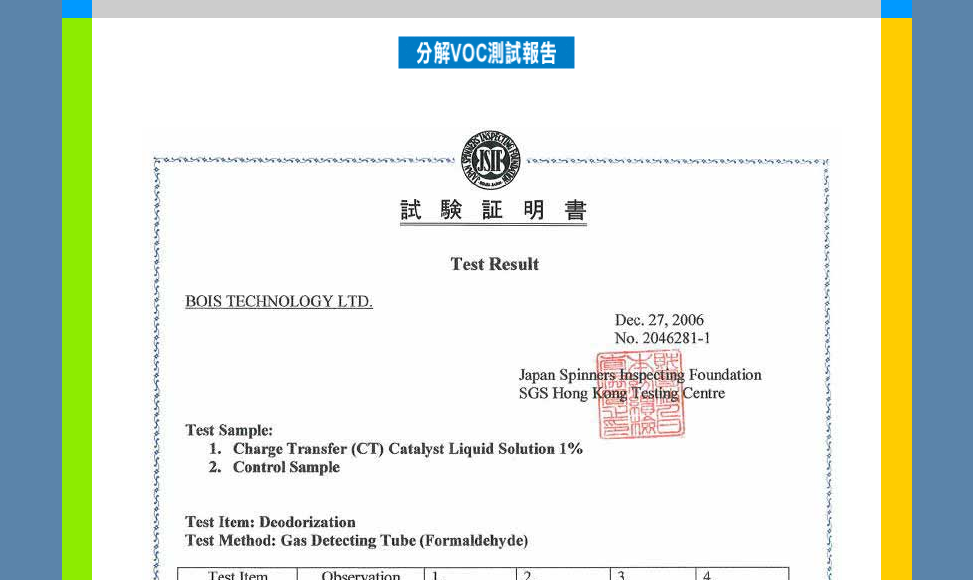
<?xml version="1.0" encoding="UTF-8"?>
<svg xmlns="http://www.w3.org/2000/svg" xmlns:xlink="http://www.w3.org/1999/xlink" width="973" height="580">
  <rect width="100%" height="100%" fill="#5b84aa" />
  <rect x="62" width="30" height="18" fill="#0099ff" />
  <rect x="92" width="789" height="18" fill="#cccccc" />
  <rect x="881" width="31" height="18" fill="#0099ff" />
  <rect x="62" y="18" width="30" height="562" fill="#8dec00" />
  <rect x="92" y="18" width="789" height="562" fill="#ffffff" />
  <rect x="881" y="18" width="31" height="562" fill="#ffcc00" />
  <image x="398" y="36" width="177" height="33" xlink:href="image1.png" />
  <image x="142" y="127" width="700" height="453" xlink:href="image2.png" />
</svg>
